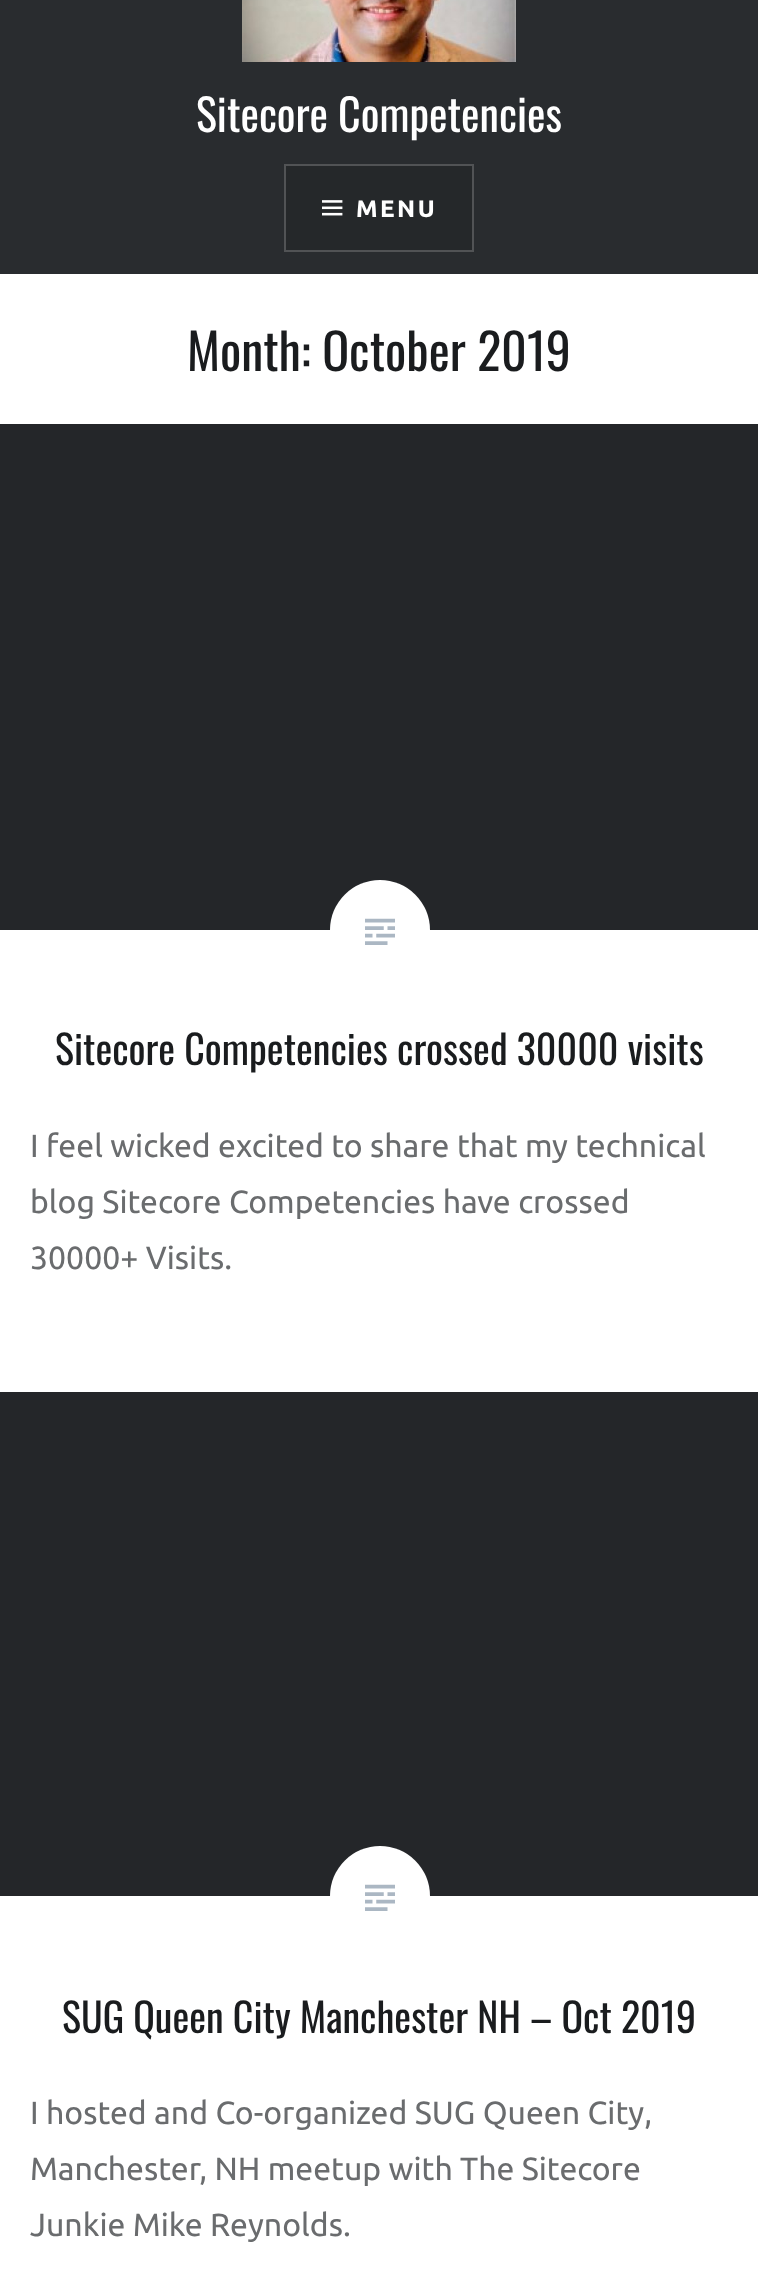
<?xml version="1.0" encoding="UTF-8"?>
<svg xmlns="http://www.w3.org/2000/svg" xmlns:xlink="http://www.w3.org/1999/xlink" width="758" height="2285">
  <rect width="100%" height="100%" fill="#ffffff" />
  <rect width="758" height="274" fill="#292c2f" />
  <image x="242" y="0" width="274" height="62" xlink:href="image1.png" />
  <rect x="285" y="165" width="188" height="86" fill="#25282a" stroke="#515355" stroke-width="2" />
  <image x="322" y="200" width="21" height="16" xlink:href="image2.png" />
  <rect y="424" width="758" height="506" fill="#242629" />
  <circle cx="380" cy="930" r="50" fill="#ffffff" />
  <image x="365" y="918" width="30" height="27" xlink:href="image3.png" />
  <rect y="1392" width="758" height="504" fill="#242629" />
  <circle cx="380" cy="1896" r="50" fill="#ffffff" />
  <image x="365" y="1884" width="30" height="27" xlink:href="image3.png" />
  <text x="196" y="132" style="font-family: Oswald; font-size: 44px; fill: #ffffff">Sitecore Competencies</text>
  <text x="356" y="217" style="font-family: Ubuntu; font-size: 24px; font-weight: bold; letter-spacing: 2.5px; fill: #ffffff">MENU</text>
  <text x="187" y="371" style="font-family: Oswald; font-size: 50px; fill: #1a1c1e">Month: October 2019</text>
  <text x="55" y="1065" style="font-family: Oswald; font-size: 40px; fill: #1a1c1e">Sitecore Competencies crossed 30000 visits</text>
  <text x="30" y="1157" style="font-family: Ubuntu; font-size: 32px; fill: #6a6c6e">I feel wicked excited to share that my technical</text>
  <text x="30" y="1213" style="font-family: Ubuntu; font-size: 32px; fill: #6a6c6e">blog Sitecore Competencies have crossed</text>
  <text x="30" y="1269" style="font-family: Ubuntu; font-size: 32px; fill: #6a6c6e">30000+ Visits.</text>
  <text x="62" y="2033" style="font-family: Oswald; font-size: 40px; fill: #1a1c1e">SUG Queen City Manchester NH – Oct 2019</text>
  <text x="30" y="2124" style="font-family: Ubuntu; font-size: 32px; fill: #6a6c6e">I hosted and Co-organized SUG Queen City,</text>
  <text x="30" y="2180" style="font-family: Ubuntu; font-size: 32px; fill: #6a6c6e">Manchester, NH meetup with The Sitecore</text>
  <text x="30" y="2236" style="font-family: Ubuntu; font-size: 32px; fill: #6a6c6e">Junkie Mike Reynolds.</text>
</svg>
